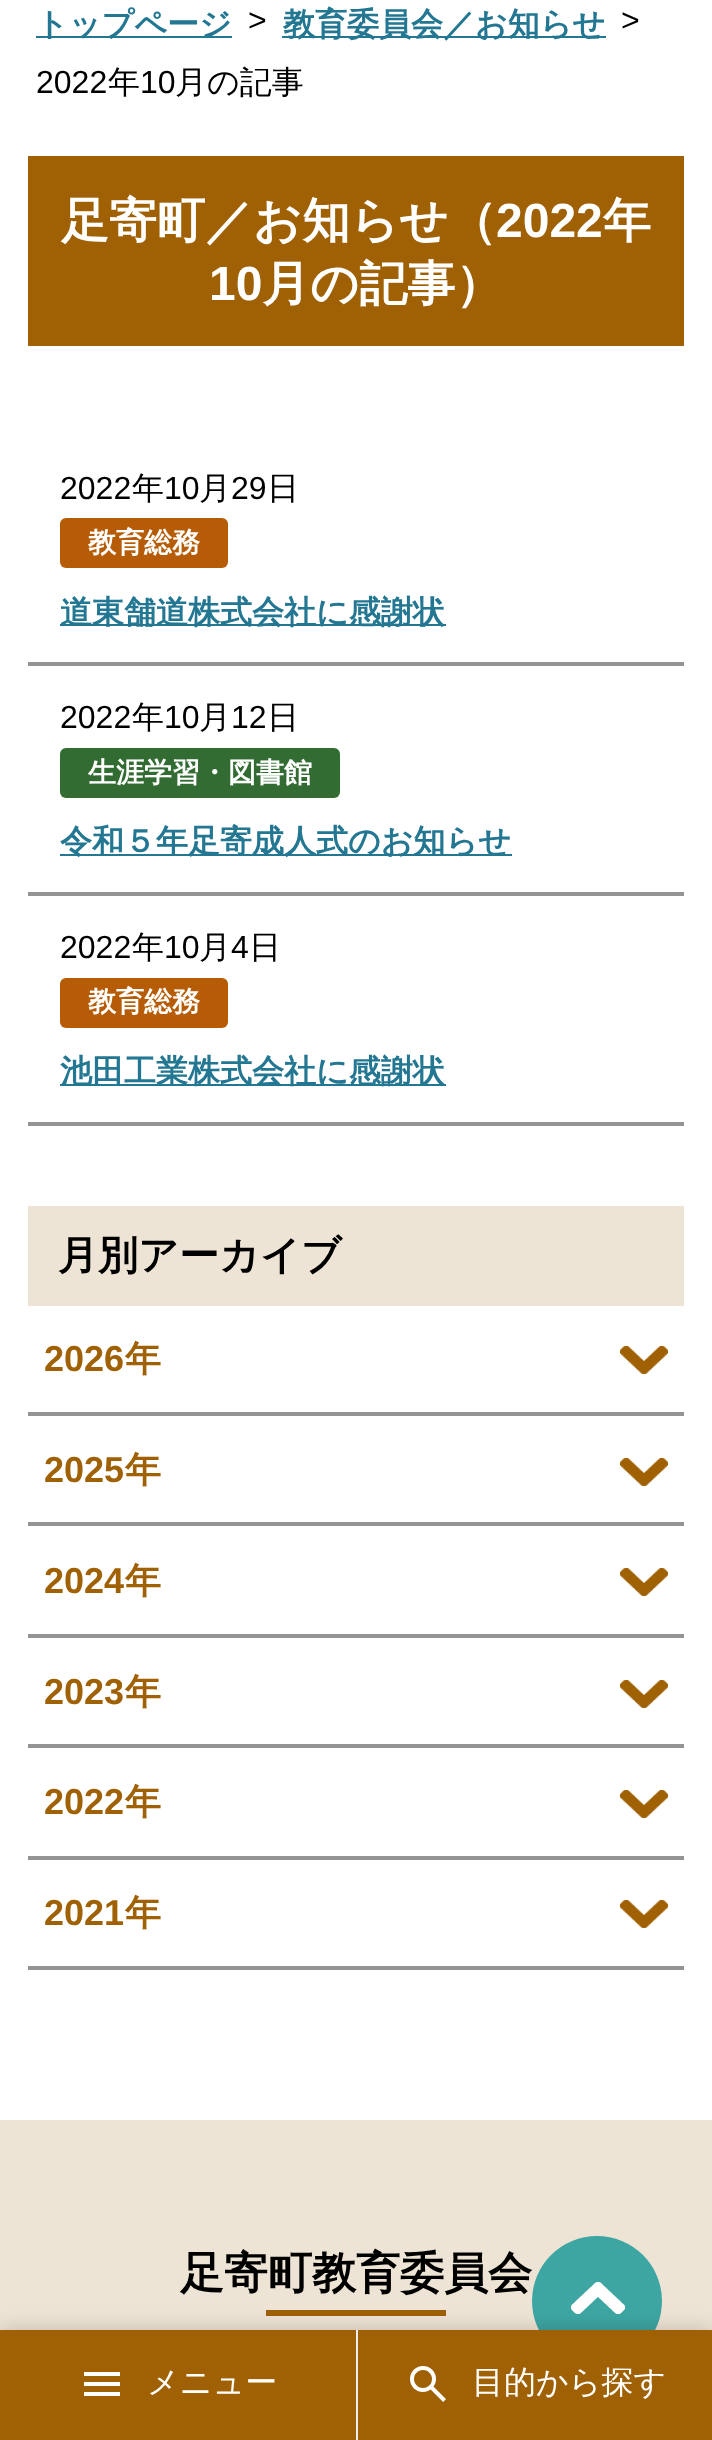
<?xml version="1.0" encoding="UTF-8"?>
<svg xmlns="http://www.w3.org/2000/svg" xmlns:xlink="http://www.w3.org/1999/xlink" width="712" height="2440">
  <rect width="100%" height="100%" fill="#ffffff" />
  <rect x="36" y="36" width="196" height="2" fill="#237792" />
  <rect x="282" y="36" width="324" height="2" fill="#237792" />
  <rect x="28" y="156" width="656" height="190" fill="#a06105" />
  <rect x="60" y="518" width="168" height="50" rx="6" fill="#b65c06" />
  <rect x="60" y="624" width="386" height="2" fill="#237792" />
  <rect x="28" y="662" width="656" height="4" fill="#949494" />
  <rect x="60" y="748" width="280" height="50" rx="6" fill="#336c33" />
  <rect x="60" y="854" width="452" height="2" fill="#237792" />
  <rect x="28" y="892" width="656" height="4" fill="#949494" />
  <rect x="60" y="978" width="168" height="50" rx="6" fill="#b65c06" />
  <rect x="60" y="1084" width="386" height="2" fill="#237792" />
  <rect x="28" y="1122" width="656" height="4" fill="#949494" />
  <rect x="28" y="1206" width="656" height="100" fill="#eee4d5" />
  <image x="620" y="1346" width="48" height="28" xlink:href="image1.png" />
  <rect x="28" y="1412" width="656" height="4" fill="#949494" />
  <image x="620" y="1458" width="48" height="28" xlink:href="image1.png" />
  <rect x="28" y="1522" width="656" height="4" fill="#949494" />
  <image x="620" y="1568" width="48" height="28" xlink:href="image1.png" />
  <rect x="28" y="1634" width="656" height="4" fill="#949494" />
  <image x="620" y="1680" width="48" height="28" xlink:href="image1.png" />
  <rect x="28" y="1744" width="656" height="4" fill="#949494" />
  <image x="620" y="1790" width="48" height="28" xlink:href="image1.png" />
  <rect x="28" y="1856" width="656" height="4" fill="#949494" />
  <image x="620" y="1900" width="48" height="28" xlink:href="image1.png" />
  <rect x="28" y="1966" width="656" height="4" fill="#949494" />
  <rect y="2120" width="712" height="210" fill="#eee4d5" />
  <rect x="266" y="2310" width="180" height="6" fill="#a06105" />
  <circle cx="597" cy="2301" r="65" fill="#3da6a3" />
  <image x="571" y="2282" width="54" height="32" xlink:href="image2.png" />
  <rect y="2330" width="712" height="110" fill="#000000" fill-opacity="0.2" filter="blur(10px)" />
  <rect y="2330" width="356" height="110" fill="#a06105" />
  <image x="84" y="2372" width="36" height="24" xlink:href="image3.png" />
  <rect x="356" y="2330" width="2" height="110" fill="#ededed" />
  <rect x="358" y="2330" width="354" height="110" fill="#a06105" />
  <image x="410" y="2366" width="36" height="36" xlink:href="image4.png" />
  <text x="36" y="35" style="font-family: WenQuanYi Zen Hei; font-size: 32px; font-weight: bold; fill: #237792">トップページ</text>
  <text x="248" y="31" style="font-family: Liberation Sans; font-size: 32px; fill: #000000">&gt;</text>
  <text x="283" y="35" style="font-family: WenQuanYi Zen Hei; font-size: 32px; font-weight: bold; fill: #237792">教育委員会／お知らせ</text>
  <text x="621" y="31" style="font-family: Liberation Sans; font-size: 32px; fill: #000000">&gt;</text>
  <text x="36" y="93" style="font-family: Liberation Sans; font-size: 32px; fill: #000000">2022</text>
  <text x="108" y="93" style="font-family: WenQuanYi Zen Hei; font-size: 32px; font-weight: 500; fill: #000000">年</text>
  <text x="140" y="93" style="font-family: Liberation Sans; font-size: 32px; fill: #000000">10</text>
  <text x="175" y="93" style="font-family: WenQuanYi Zen Hei; font-size: 32px; font-weight: 500; fill: #000000">月の記事</text>
  <text x="61" y="237" style="font-family: WenQuanYi Zen Hei; font-size: 48px; font-weight: bold; fill: #ffffff">足寄町／お知らせ（</text>
  <text x="496" y="237" style="font-family: Liberation Sans; font-size: 48px; font-weight: bold; fill: #ffffff">2022</text>
  <text x="603" y="237" style="font-family: WenQuanYi Zen Hei; font-size: 48px; font-weight: bold; fill: #ffffff">年</text>
  <text x="209" y="300" style="font-family: Liberation Sans; font-size: 48px; font-weight: bold; fill: #ffffff">10</text>
  <text x="262" y="300" style="font-family: WenQuanYi Zen Hei; font-size: 48px; font-weight: bold; fill: #ffffff">月の記事）</text>
  <text x="60" y="499" style="font-family: Liberation Sans; font-size: 32px; fill: #000000">2022</text>
  <text x="132" y="499" style="font-family: WenQuanYi Zen Hei; font-size: 32px; font-weight: 500; fill: #000000">年</text>
  <text x="164" y="499" style="font-family: Liberation Sans; font-size: 32px; fill: #000000">10</text>
  <text x="199" y="499" style="font-family: WenQuanYi Zen Hei; font-size: 32px; font-weight: 500; fill: #000000">月</text>
  <text x="231" y="499" style="font-family: Liberation Sans; font-size: 32px; fill: #000000">29</text>
  <text x="267" y="499" style="font-family: WenQuanYi Zen Hei; font-size: 32px; font-weight: 500; fill: #000000">日</text>
  <text x="88" y="552" style="font-family: WenQuanYi Zen Hei; font-size: 28px; font-weight: bold; fill: #ffffff">教育総務</text>
  <text x="60" y="623" style="font-family: WenQuanYi Zen Hei; font-size: 32px; font-weight: bold; fill: #237792">道東舗道株式会社に感謝状</text>
  <text x="60" y="728" style="font-family: Liberation Sans; font-size: 32px; fill: #000000">2022</text>
  <text x="132" y="728" style="font-family: WenQuanYi Zen Hei; font-size: 32px; font-weight: 500; fill: #000000">年</text>
  <text x="164" y="728" style="font-family: Liberation Sans; font-size: 32px; fill: #000000">10</text>
  <text x="199" y="728" style="font-family: WenQuanYi Zen Hei; font-size: 32px; font-weight: 500; fill: #000000">月</text>
  <text x="231" y="728" style="font-family: Liberation Sans; font-size: 32px; fill: #000000">12</text>
  <text x="267" y="728" style="font-family: WenQuanYi Zen Hei; font-size: 32px; font-weight: 500; fill: #000000">日</text>
  <text x="88" y="782" style="font-family: WenQuanYi Zen Hei; font-size: 28px; font-weight: bold; fill: #ffffff">生涯学習・図書館</text>
  <text x="60" y="852" style="font-family: WenQuanYi Zen Hei; font-size: 32px; font-weight: bold; fill: #237792">令和５年足寄成人式のお知らせ</text>
  <text x="60" y="958" style="font-family: Liberation Sans; font-size: 32px; fill: #000000">2022</text>
  <text x="132" y="958" style="font-family: WenQuanYi Zen Hei; font-size: 32px; font-weight: 500; fill: #000000">年</text>
  <text x="164" y="958" style="font-family: Liberation Sans; font-size: 32px; fill: #000000">10</text>
  <text x="199" y="958" style="font-family: WenQuanYi Zen Hei; font-size: 32px; font-weight: 500; fill: #000000">月</text>
  <text x="231" y="958" style="font-family: Liberation Sans; font-size: 32px; fill: #000000">4</text>
  <text x="249" y="958" style="font-family: WenQuanYi Zen Hei; font-size: 32px; font-weight: 500; fill: #000000">日</text>
  <text x="88" y="1011" style="font-family: WenQuanYi Zen Hei; font-size: 28px; font-weight: bold; fill: #ffffff">教育総務</text>
  <text x="60" y="1082" style="font-family: WenQuanYi Zen Hei; font-size: 32px; font-weight: bold; fill: #237792">池田工業株式会社に感謝状</text>
  <text x="58" y="1269" style="font-family: WenQuanYi Zen Hei; font-size: 40px; font-weight: bold; fill: #000000">月別アーカイブ</text>
  <text x="44" y="1371" style="font-family: Liberation Sans; font-size: 36px; font-weight: bold; fill: #a06105">2026</text>
  <text x="125" y="1371" style="font-family: WenQuanYi Zen Hei; font-size: 36px; font-weight: bold; fill: #a06105">年</text>
  <text x="44" y="1482" style="font-family: Liberation Sans; font-size: 36px; font-weight: bold; fill: #a06105">2025</text>
  <text x="125" y="1482" style="font-family: WenQuanYi Zen Hei; font-size: 36px; font-weight: bold; fill: #a06105">年</text>
  <text x="44" y="1593" style="font-family: Liberation Sans; font-size: 36px; font-weight: bold; fill: #a06105">2024</text>
  <text x="125" y="1593" style="font-family: WenQuanYi Zen Hei; font-size: 36px; font-weight: bold; fill: #a06105">年</text>
  <text x="44" y="1704" style="font-family: Liberation Sans; font-size: 36px; font-weight: bold; fill: #a06105">2023</text>
  <text x="125" y="1704" style="font-family: WenQuanYi Zen Hei; font-size: 36px; font-weight: bold; fill: #a06105">年</text>
  <text x="44" y="1814" style="font-family: Liberation Sans; font-size: 36px; font-weight: bold; fill: #a06105">2022</text>
  <text x="125" y="1814" style="font-family: WenQuanYi Zen Hei; font-size: 36px; font-weight: bold; fill: #a06105">年</text>
  <text x="44" y="1925" style="font-family: Liberation Sans; font-size: 36px; font-weight: bold; fill: #a06105">2021</text>
  <text x="125" y="1925" style="font-family: WenQuanYi Zen Hei; font-size: 36px; font-weight: bold; fill: #a06105">年</text>
  <text x="180" y="2288" style="font-family: WenQuanYi Zen Hei; font-size: 44px; font-weight: bold; fill: #000000">足寄町教育委員会</text>
  <text x="147" y="2393" style="font-family: WenQuanYi Zen Hei; font-size: 32px; font-weight: 500; fill: #ffffff">メニュー</text>
  <text x="472" y="2393" style="font-family: WenQuanYi Zen Hei; font-size: 32px; font-weight: 500; fill: #ffffff">目的から探す</text>
</svg>
